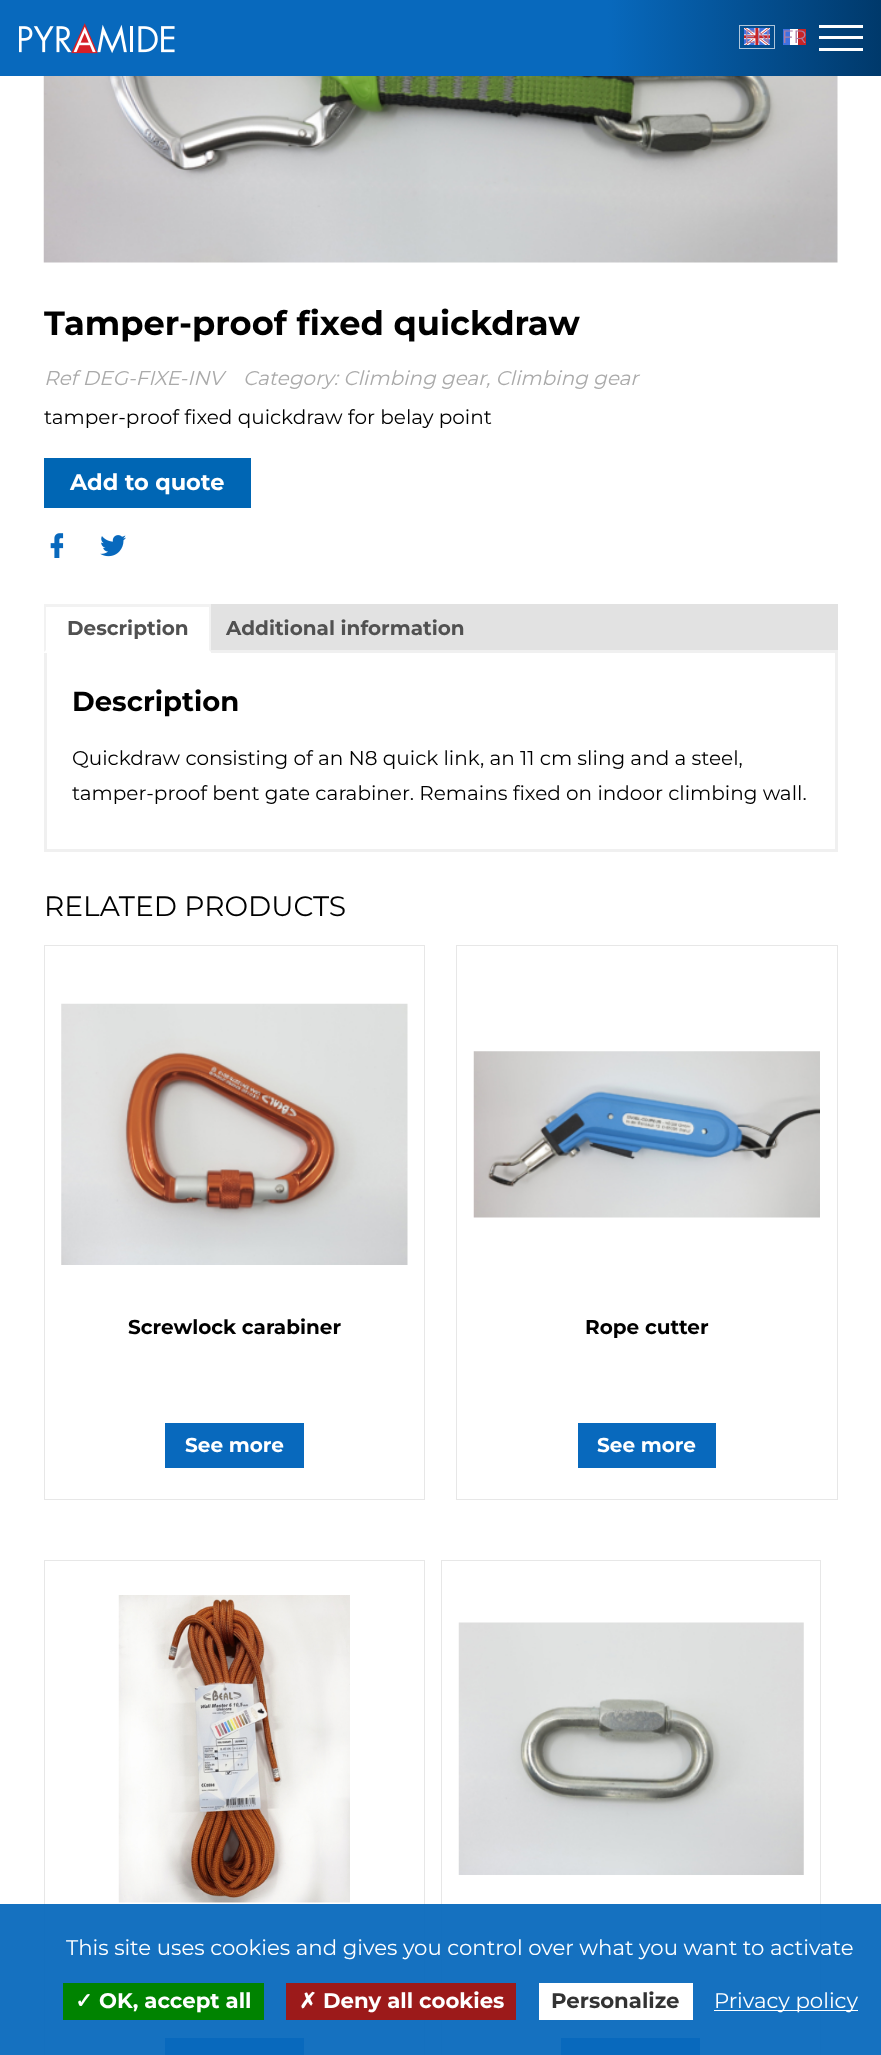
<?xml version="1.0" encoding="UTF-8"?>
<svg xmlns="http://www.w3.org/2000/svg" xmlns:xlink="http://www.w3.org/1999/xlink" width="881" height="2055">
  <defs>
    <linearGradient id="g1" gradientUnits="userSpaceOnUse" x1="0" y1="38" x2="881" y2="38"><stop offset="0" stop-color="#0869bd" /><stop offset="0.69" stop-color="#0869bd" /><stop offset="1" stop-color="#00396b" /></linearGradient>
  </defs>
  <rect width="100%" height="100%" fill="#ffffff" />
  <rect width="881" height="76" fill="url(#g1)" />
  <image x="19" y="23" width="156" height="31" xlink:href="image1.png" />
  <image x="744" y="28" width="26" height="17" xlink:href="image2.png" />
  <rect x="739.5" y="25.5" width="35" height="23" fill="none" stroke="#ffffff" stroke-opacity="0.68" />
  <rect x="790" y="29" width="8" height="16" fill="#ffffff" />
  <rect x="783" y="29" width="7" height="16" fill="#4171e0" />
  <rect x="798" y="29" width="8" height="16" fill="#c72427" />
  <rect x="819" y="25" width="44" height="3" fill="#ffffff" />
  <rect x="819" y="36" width="44" height="3" fill="#ffffff" />
  <rect x="819" y="48" width="44" height="3" fill="#ffffff" />
  <image x="43" y="76" width="795" height="187" xlink:href="image3.png" />
  <rect x="44" y="458" width="207" height="50" fill="#0066b4" />
  <image x="50" y="533" width="14" height="25" xlink:href="image4.png" />
  <image x="100" y="535" width="26" height="22" xlink:href="image5.png" />
  <rect x="211" y="604" width="627" height="46" fill="#e2e2e2" />
  <rect x="44" y="604" width="167" height="3" fill="#f2f2f2" />
  <path d="M 211 604 v 48 l -2 -2 v -44 z" fill="#f2f2f2" />
  <path d="M 44 652 v -48 l 2 2 v 44 z" fill="#f2f2f2" />
  <rect x="211" y="650" width="627" height="3" fill="#f0f0f0" />
  <rect x="835" y="653" width="3" height="198" fill="#f0f0f0" />
  <rect x="44" y="849" width="794" height="3" fill="#f0f0f0" />
  <rect x="44" y="653" width="3" height="198" fill="#f0f0f0" />
  <rect x="44.5" y="945.5" width="380" height="554" fill="none" stroke="#e7e7e7" />
  <image x="61" y="1003" width="347" height="262" xlink:href="image6.png" />
  <rect x="165" y="1423" width="139" height="45" fill="#0869bd" />
  <rect x="456.5" y="945.5" width="381" height="554" fill="none" stroke="#e7e7e7" />
  <image x="473" y="1051" width="347" height="167" xlink:href="image7.png" />
  <rect x="578" y="1423" width="138" height="45" fill="#0869bd" />
  <rect x="44.5" y="1560.5" width="380" height="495" fill="none" stroke="#e7e7e7" />
  <image x="118" y="1595" width="232" height="308" xlink:href="image8.png" />
  <rect x="165" y="2038" width="139" height="17" fill="#0869bd" />
  <rect x="441.5" y="1560.5" width="379" height="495" fill="none" stroke="#e7e7e7" />
  <image x="458" y="1622" width="346" height="253" xlink:href="image9.png" />
  <rect x="561" y="2038" width="139" height="17" fill="#0869bd" />
  <rect y="1904" width="881" height="151" fill="#0869bd" fill-opacity="0.95" />
  <rect x="63" y="1983" width="201" height="37" fill="#008300" />
  <rect x="286" y="1983" width="230" height="37" fill="#9c1a1a" />
  <rect x="539" y="1983" width="154" height="37" fill="#ffffff" />
  <rect x="714" y="2010" width="144" height="1" fill="#ffffff" />
  <text x="744" y="43" style="font-family: Montserrat; font-size: 18px; fill: #ad7ea3">EN</text>
  <text x="782" y="43" style="font-family: Montserrat; font-size: 18px; fill: #ad7ea3">FR</text>
  <text x="44" y="335" style="font-family: Montserrat; font-size: 33.75px; font-weight: bold; fill: #000000">Tamper-proof fixed quickdraw</text>
  <text x="44" y="385" style="font-family: Montserrat; font-size: 20px; font-style: italic; fill: #aaaaaa">Ref DEG-FIXE-INV</text>
  <text x="243" y="385" style="font-family: Montserrat; font-size: 20px; font-style: italic; fill: #aaaaaa">Category: Climbing gear, Climbing gear</text>
  <text x="44" y="424" style="font-family: Montserrat; font-size: 20px; fill: #000000">tamper-proof fixed quickdraw for belay point</text>
  <text x="70" y="490" style="font-family: Montserrat; font-size: 22.5px; font-weight: bold; fill: #ffffff">Add to quote</text>
  <text x="67" y="635" style="font-family: Montserrat; font-size: 20px; font-weight: bold; fill: #515151">Description</text>
  <text x="226" y="635" style="font-family: Montserrat; font-size: 20px; font-weight: bold; fill: #515151">Additional information</text>
  <text x="72" y="711" style="font-family: Montserrat; font-size: 27.5px; font-weight: bold; fill: #000000">Description</text>
  <text x="72" y="765" style="font-family: Montserrat; font-size: 20px; fill: #000000">Quickdraw consisting of an N8 quick link, an 11 cm sling and a steel,</text>
  <text x="72" y="800" style="font-family: Montserrat; font-size: 20px; fill: #000000">tamper-proof bent gate carabiner. Remains fixed on indoor climbing wall.</text>
  <text x="44" y="916" style="font-family: Montserrat; font-size: 28.1px; fill: #000000">RELATED PRODUCTS</text>
  <text x="128" y="1334" style="font-family: Montserrat; font-size: 20px; font-weight: bold; fill: #000000">Screwlock carabiner</text>
  <text x="185" y="1452" style="font-family: Montserrat; font-size: 20px; font-weight: bold; fill: #ffffff">See more</text>
  <text x="585" y="1334" style="font-family: Montserrat; font-size: 20px; font-weight: bold; fill: #000000">Rope cutter</text>
  <text x="597" y="1452" style="font-family: Montserrat; font-size: 20px; font-weight: bold; fill: #ffffff">See more</text>
  <text x="66" y="1955" style="font-family: Montserrat; font-size: 21.25px; fill: #ffffff">This site uses cookies and gives you control over what you want to activate</text>
  <text x="75" y="2008" style="font-family: DejaVu Sans; font-size: 21.25px; font-weight: bold; fill: #ffffff">✓</text>
  <text x="99" y="2008" style="font-family: Montserrat; font-size: 21.25px; font-weight: bold; fill: #ffffff">OK, accept all</text>
  <text x="299" y="2008" style="font-family: DejaVu Sans; font-size: 21.25px; font-weight: bold; fill: #ffffff">✗</text>
  <text x="323" y="2008" style="font-family: Montserrat; font-size: 21.25px; font-weight: bold; fill: #ffffff">Deny all cookies</text>
  <text x="551" y="2008" style="font-family: Montserrat; font-size: 21.25px; font-weight: bold; fill: #333333">Personalize</text>
  <text x="714" y="2008" style="font-family: Montserrat; font-size: 21.25px; fill: #ffffff">Privacy policy</text>
</svg>
